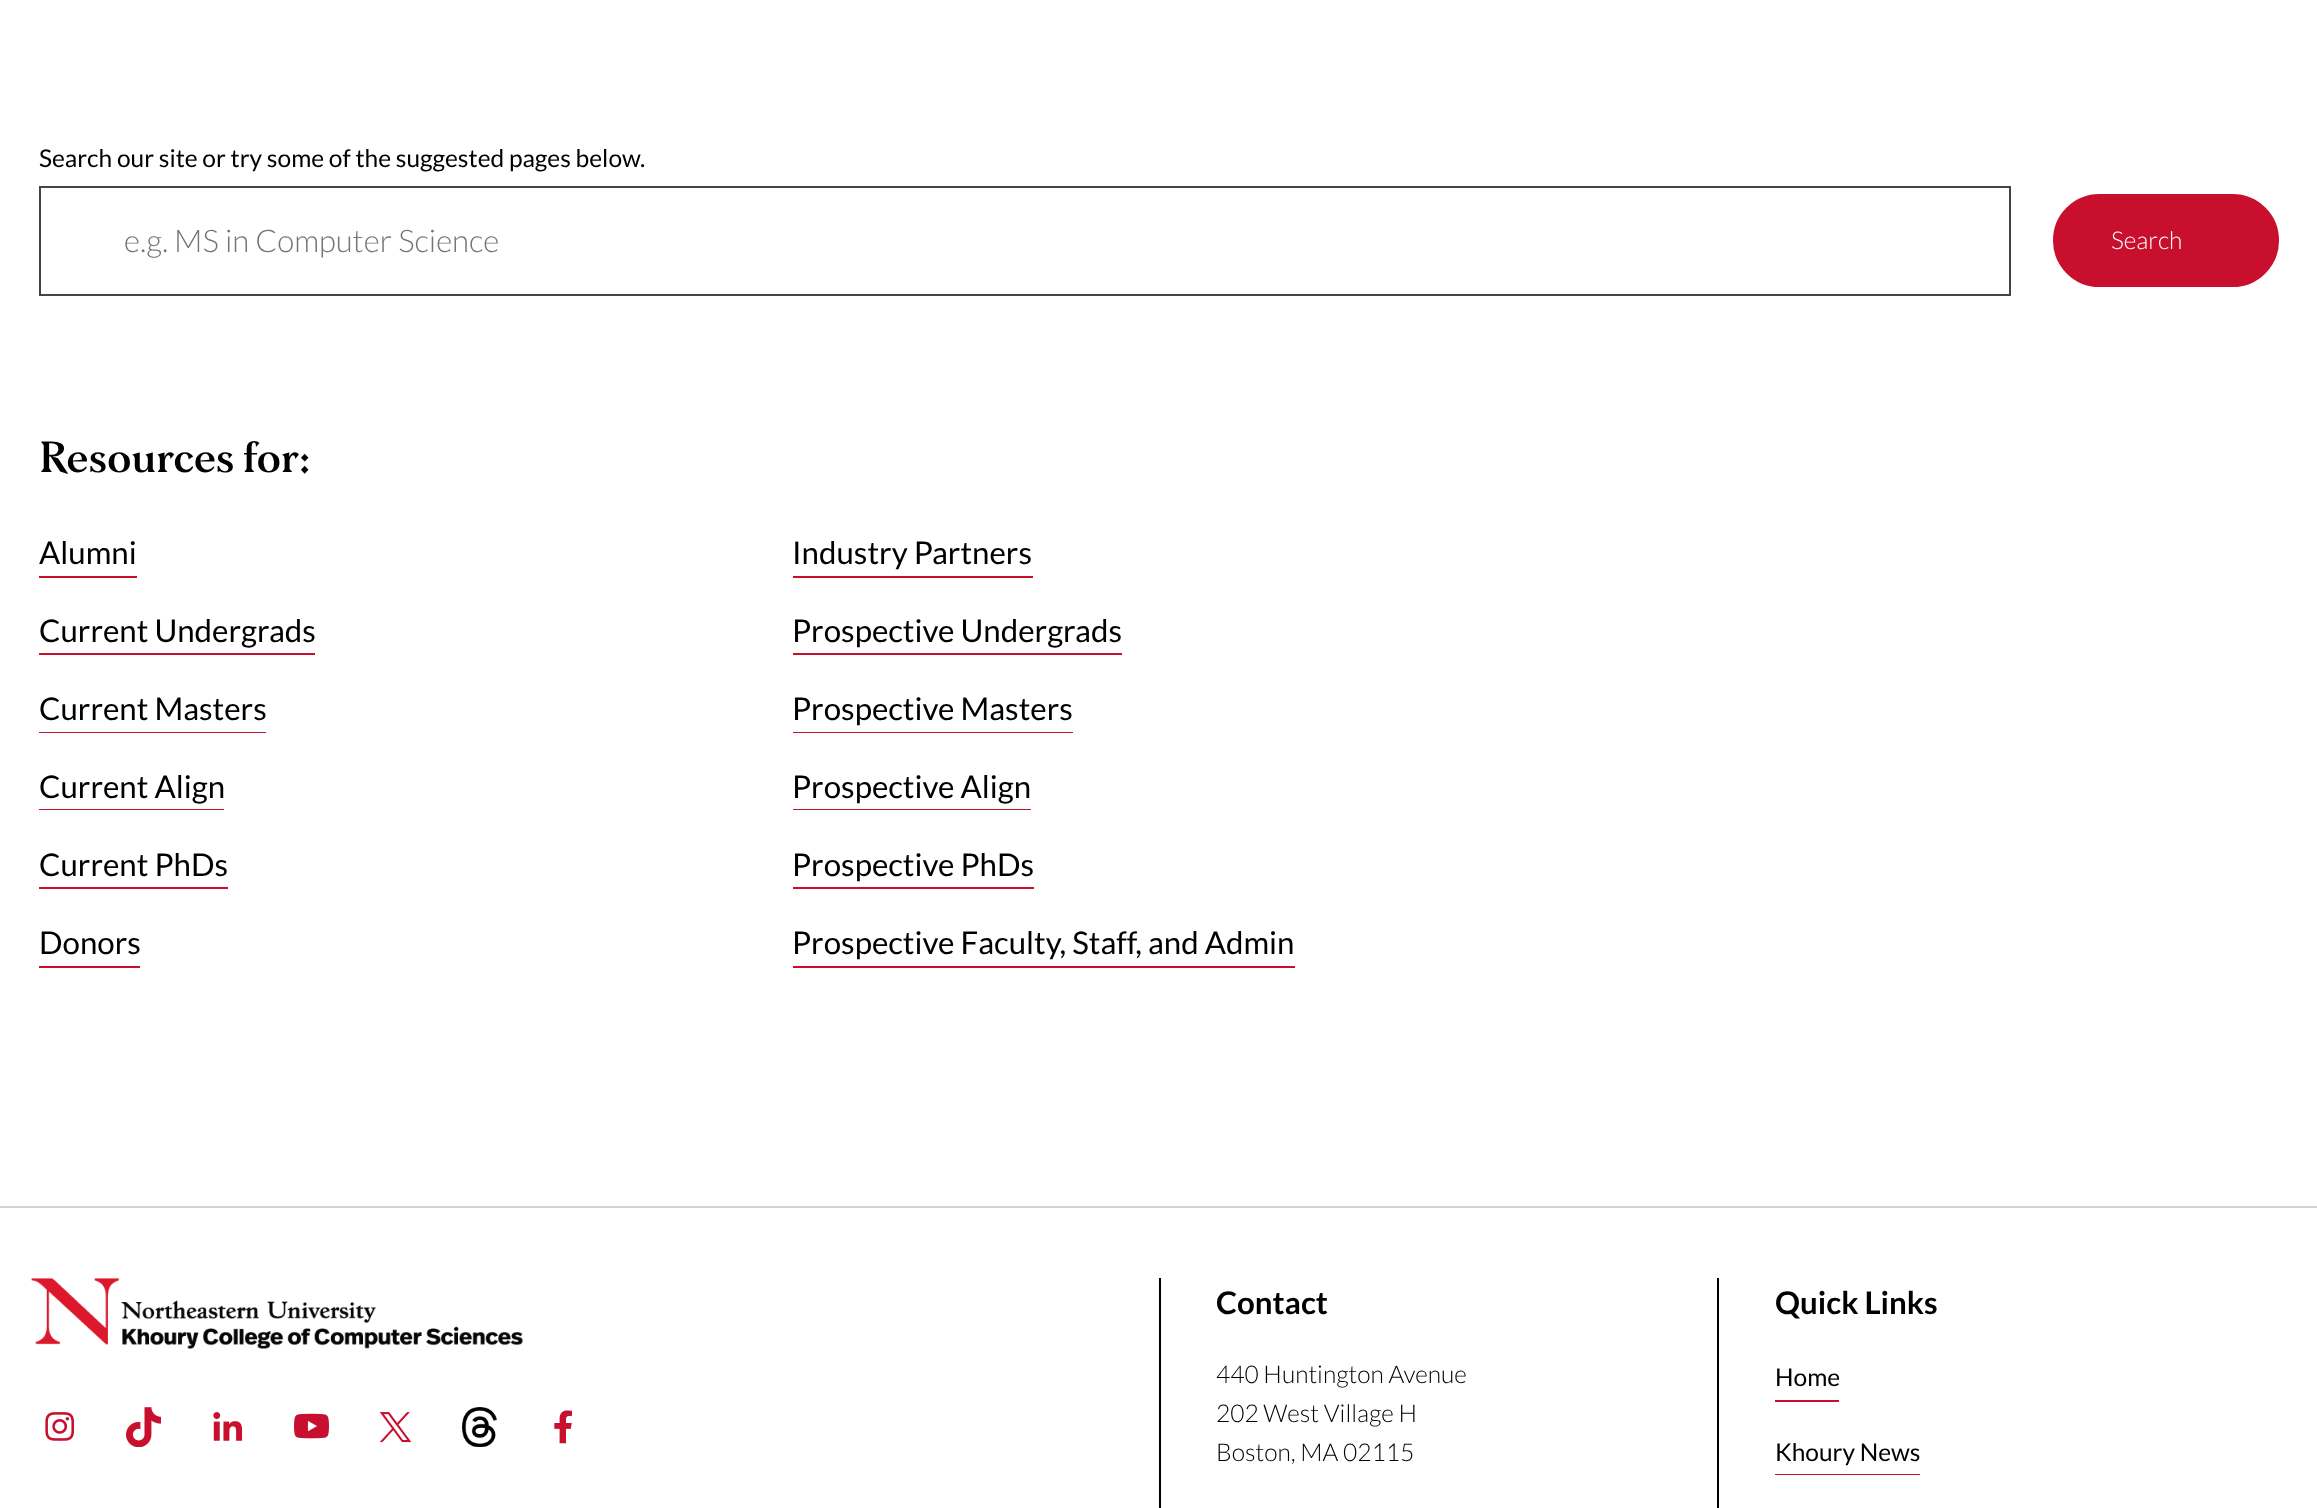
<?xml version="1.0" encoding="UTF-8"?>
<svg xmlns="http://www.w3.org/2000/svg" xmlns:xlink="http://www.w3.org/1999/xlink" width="2317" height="1508">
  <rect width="100%" height="100%" fill="#ffffff" />
  <rect x="40" y="187" width="1970" height="108" fill="none" stroke="#444444" stroke-width="2" />
  <rect x="2054" y="195" width="224" height="91" rx="45.5" fill="#c8102e" stroke="#c8102e" stroke-width="2" />
  <rect x="39" y="576" width="98" height="2" fill="#c8102e" />
  <rect x="793" y="576" width="240" height="2" fill="#c8102e" />
  <rect x="39" y="653" width="276" height="2" fill="#c8102e" />
  <rect x="793" y="653" width="329" height="2" fill="#c8102e" />
  <rect x="39" y="732" width="227" height="1" fill="#c8102e" />
  <rect x="793" y="732" width="280" height="1" fill="#c8102e" />
  <rect x="39" y="809" width="185" height="1" fill="#c8102e" />
  <rect x="793" y="809" width="238" height="1" fill="#c8102e" />
  <rect x="39" y="887" width="189" height="2" fill="#c8102e" />
  <rect x="793" y="887" width="241" height="2" fill="#c8102e" />
  <rect x="39" y="966" width="101" height="2" fill="#c8102e" />
  <rect x="793" y="966" width="502" height="2" fill="#c8102e" />
  <rect y="1206" width="2317" height="2" fill="#d3d3d3" />
  <image x="31" y="1278" width="493" height="71" xlink:href="image1.png" />
  <image x="45" y="1412" width="30" height="29" xlink:href="image2.png" />
  <image x="126" y="1407" width="35" height="40" xlink:href="image3.png" />
  <image x="213" y="1412" width="30" height="29" xlink:href="image4.png" />
  <image x="294" y="1413" width="35" height="26" xlink:href="image5.png" />
  <image x="379" y="1412" width="33" height="31" xlink:href="image6.png" />
  <image x="462" y="1407" width="35" height="40" xlink:href="image7.png" />
  <image x="554" y="1410" width="18" height="34" xlink:href="image8.png" />
  <rect x="1717" y="1278" width="2" height="230" fill="#000000" />
  <rect x="1159" y="1278" width="2" height="230" fill="#000000" />
  <rect x="1775" y="1400" width="64" height="2" fill="#c8102e" />
  <rect x="1775" y="1474" width="145" height="1" fill="#c8102e" />
  <text x="39" y="167" style="font-family: Lato; font-size: 24.5px; fill: #000000">Search our site or try some of the suggested pages below.</text>
  <text x="124" y="252" style="font-family: Lato; font-size: 31.25px; font-weight: 300; fill: #757575">e.g. MS in Computer Science</text>
  <text x="2111" y="249" style="font-family: Lato; font-size: 24.5px; font-weight: 300; fill: #ffffff">Search</text>
  <text x="39" y="472" style="font-family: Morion; font-size: 41.5px; font-weight: bold; fill: #000000">Resources for:</text>
  <text x="39" y="564" style="font-family: Lato; font-size: 31.25px; fill: #000000">Alumni</text>
  <text x="792" y="564" style="font-family: Lato; font-size: 31.25px; fill: #000000">Industry Partners</text>
  <text x="39" y="642" style="font-family: Lato; font-size: 31.25px; fill: #000000">Current Undergrads</text>
  <text x="792" y="642" style="font-family: Lato; font-size: 31.25px; fill: #000000">Prospective Undergrads</text>
  <text x="39" y="720" style="font-family: Lato; font-size: 31.25px; fill: #000000">Current Masters</text>
  <text x="792" y="720" style="font-family: Lato; font-size: 31.25px; fill: #000000">Prospective Masters</text>
  <text x="39" y="798" style="font-family: Lato; font-size: 31.25px; fill: #000000">Current Align</text>
  <text x="792" y="798" style="font-family: Lato; font-size: 31.25px; fill: #000000">Prospective Align</text>
  <text x="39" y="876" style="font-family: Lato; font-size: 31.25px; fill: #000000">Current PhDs</text>
  <text x="792" y="876" style="font-family: Lato; font-size: 31.25px; fill: #000000">Prospective PhDs</text>
  <text x="39" y="954" style="font-family: Lato; font-size: 31.25px; fill: #000000">Donors</text>
  <text x="792" y="954" style="font-family: Lato; font-size: 31.25px; fill: #000000">Prospective Faculty, Staff, and Admin</text>
  <text x="1216" y="1314" style="font-family: Lato; font-size: 31.25px; font-weight: bold; fill: #000000">Contact</text>
  <text x="1216" y="1383" style="font-family: Lato; font-size: 24.5px; font-weight: 300; fill: #000000">440 Huntington Avenue</text>
  <text x="1216" y="1422" style="font-family: Lato; font-size: 24.5px; font-weight: 300; fill: #000000">202 West Village H</text>
  <text x="1216" y="1461" style="font-family: Lato; font-size: 24.5px; font-weight: 300; fill: #000000">Boston, MA 02115</text>
  <text x="1775" y="1314" style="font-family: Lato; font-size: 31.25px; font-weight: bold; fill: #000000">Quick Links</text>
  <text x="1775" y="1386" style="font-family: Lato; font-size: 24.5px; fill: #000000">Home</text>
  <text x="1775" y="1461" style="font-family: Lato; font-size: 24.5px; fill: #000000">Khoury News</text>
</svg>
